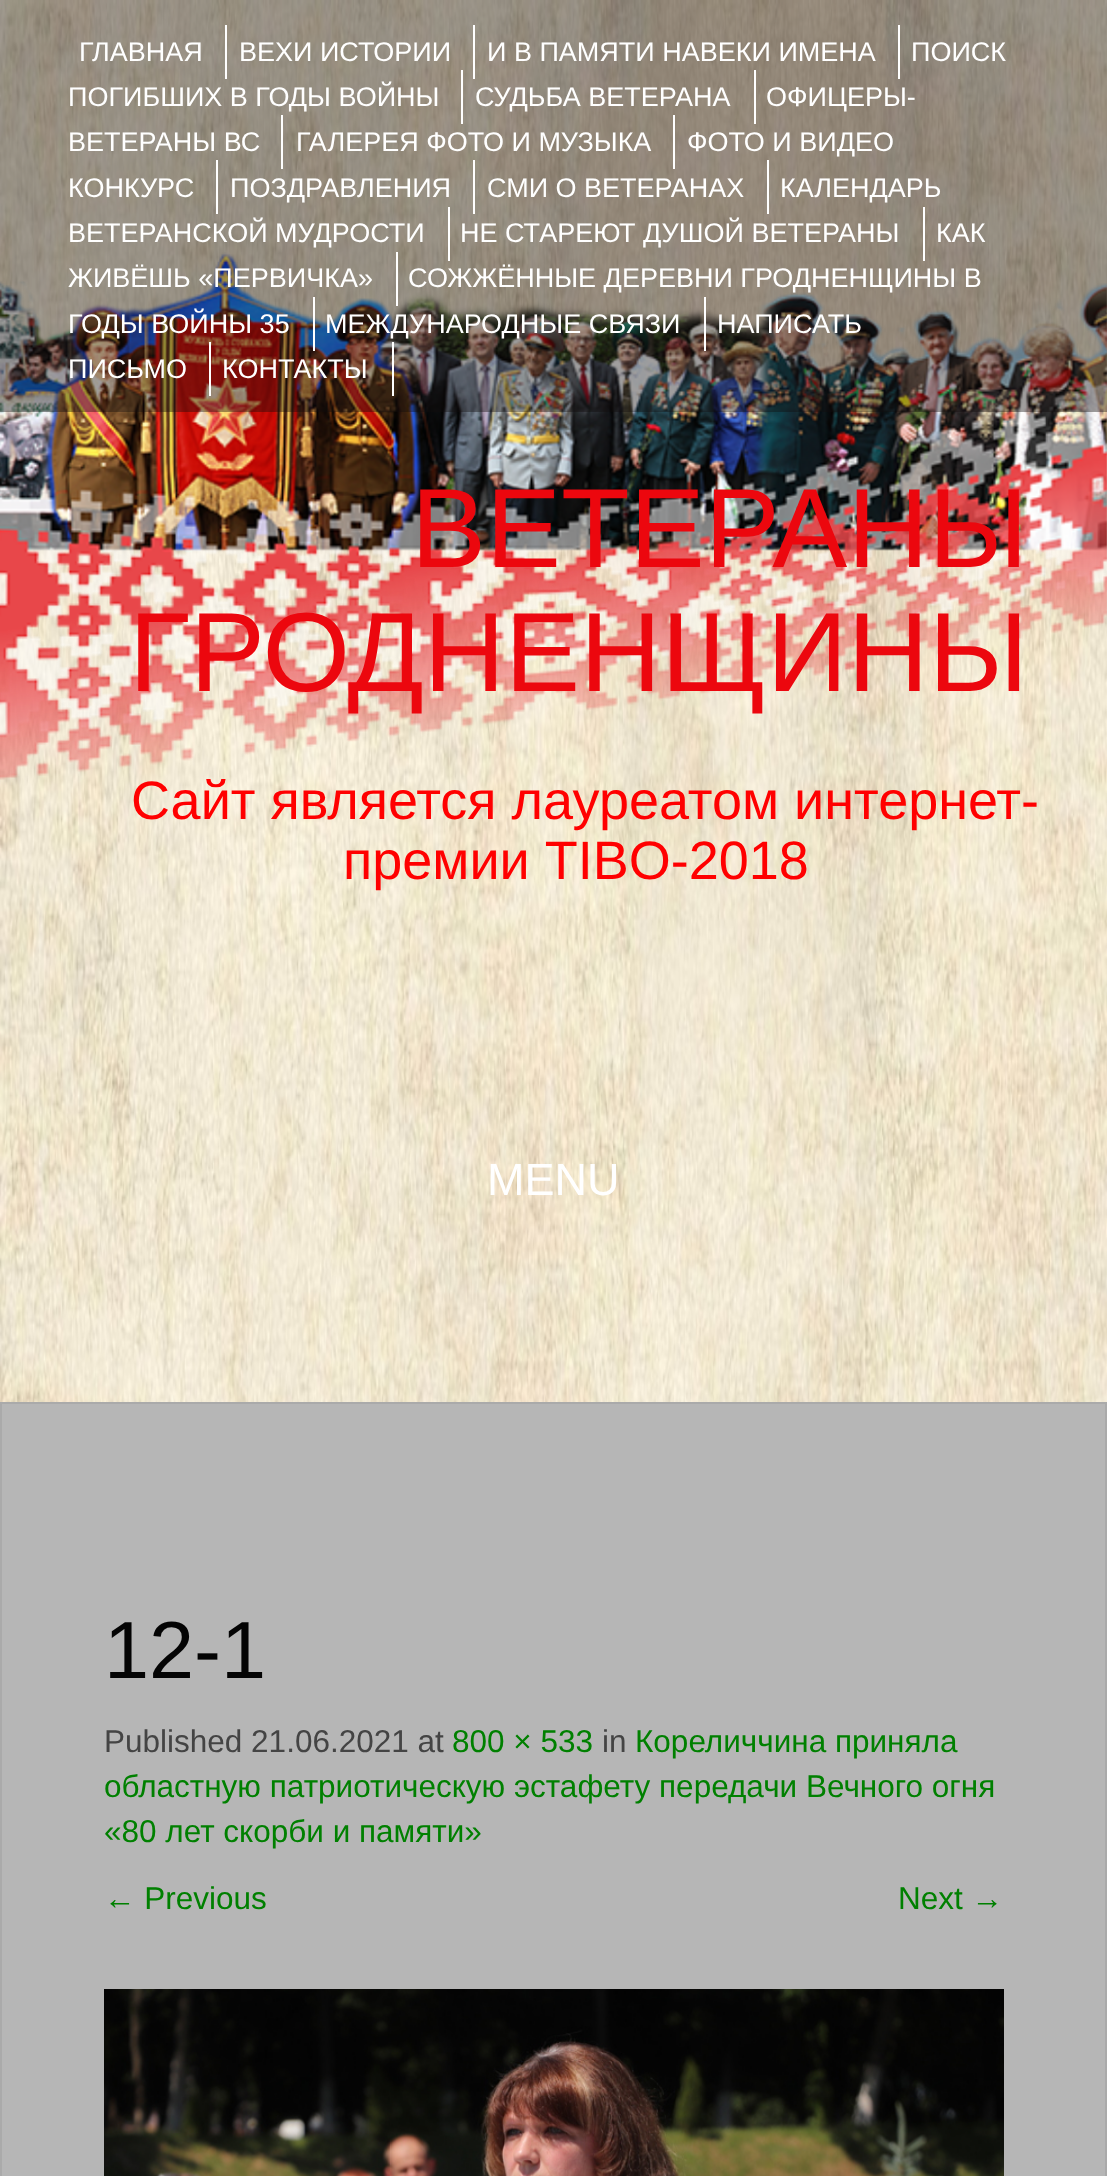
<?xml version="1.0" encoding="UTF-8"?>
<svg xmlns="http://www.w3.org/2000/svg" xmlns:xlink="http://www.w3.org/1999/xlink" width="1107" height="2176">
  <rect width="100%" height="100%" fill="#ffffff" />
  <image x="0" y="0" width="1107" height="1402" xlink:href="image1.png" />
  <image x="0" y="252" width="1107" height="528" xlink:href="image3.png" />
  <rect width="1107" height="412" fill="#120d0c" fill-opacity="0.4" />
  <rect x="225" y="25" width="2" height="54" fill="#ffffff" />
  <rect x="473" y="25" width="2" height="54" fill="#ffffff" />
  <rect x="898" y="25" width="2" height="54" fill="#ffffff" />
  <rect x="461" y="70" width="2" height="54" fill="#ffffff" />
  <rect x="754" y="70" width="2" height="54" fill="#ffffff" />
  <rect x="281" y="115" width="2" height="54" fill="#ffffff" />
  <rect x="673" y="115" width="2" height="54" fill="#ffffff" />
  <rect x="216" y="160" width="2" height="54" fill="#ffffff" />
  <rect x="473" y="160" width="2" height="54" fill="#ffffff" />
  <rect x="767" y="160" width="2" height="54" fill="#ffffff" />
  <rect x="448" y="207" width="2" height="54" fill="#ffffff" />
  <rect x="923" y="207" width="2" height="54" fill="#ffffff" />
  <rect x="396" y="252" width="2" height="54" fill="#ffffff" />
  <rect x="313" y="297" width="2" height="54" fill="#ffffff" />
  <rect x="704" y="297" width="2" height="54" fill="#ffffff" />
  <rect x="209" y="342" width="2" height="54" fill="#ffffff" />
  <rect x="392" y="342" width="2" height="54" fill="#ffffff" />
  <rect x="1" y="1403" width="1105" height="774" fill="#b6b6b6" stroke="#aaaaaa" stroke-width="2" />
  <image x="104" y="1989" width="900" height="187" xlink:href="image2.png" />
  <text x="79" y="61" style="font-family: Liberation Sans; font-size: 27px; fill: #ffffff">ГЛАВНАЯ</text>
  <text x="239" y="61" style="font-family: Liberation Sans; font-size: 27px; fill: #ffffff">ВЕХИ ИСТОРИИ</text>
  <text x="487" y="61" style="font-family: Liberation Sans; font-size: 27px; fill: #ffffff">И В ПАМЯТИ НАВЕКИ ИМЕНА</text>
  <text x="911" y="61" style="font-family: Liberation Sans; font-size: 27px; fill: #ffffff">ПОИСК</text>
  <text x="68" y="106" style="font-family: Liberation Sans; font-size: 27px; fill: #ffffff">ПОГИБШИХ В ГОДЫ ВОЙНЫ</text>
  <text x="475" y="106" style="font-family: Liberation Sans; font-size: 27px; fill: #ffffff">СУДЬБА ВЕТЕРАНА</text>
  <text x="766" y="106" style="font-family: Liberation Sans; font-size: 27px; fill: #ffffff">ОФИЦЕРЫ-</text>
  <text x="68" y="151" style="font-family: Liberation Sans; font-size: 27px; fill: #ffffff">ВЕТЕРАНЫ ВС</text>
  <text x="296" y="151" style="font-family: Liberation Sans; font-size: 27px; fill: #ffffff">ГАЛЕРЕЯ ФОТО И МУЗЫКА</text>
  <text x="687" y="151" style="font-family: Liberation Sans; font-size: 27px; fill: #ffffff">ФОТО И ВИДЕО</text>
  <text x="68" y="197" style="font-family: Liberation Sans; font-size: 27px; fill: #ffffff">КОНКУРС</text>
  <text x="230" y="197" style="font-family: Liberation Sans; font-size: 27px; fill: #ffffff">ПОЗДРАВЛЕНИЯ</text>
  <text x="487" y="197" style="font-family: Liberation Sans; font-size: 27px; fill: #ffffff">СМИ О ВЕТЕРАНАХ</text>
  <text x="780" y="197" style="font-family: Liberation Sans; font-size: 27px; fill: #ffffff">КАЛЕНДАРЬ</text>
  <text x="68" y="242" style="font-family: Liberation Sans; font-size: 27px; fill: #ffffff">ВЕТЕРАНСКОЙ МУДРОСТИ</text>
  <text x="460" y="242" style="font-family: Liberation Sans; font-size: 27px; fill: #ffffff">НЕ СТАРЕЮТ ДУШОЙ ВЕТЕРАНЫ</text>
  <text x="936" y="242" style="font-family: Liberation Sans; font-size: 27px; fill: #ffffff">КАК</text>
  <text x="68" y="287" style="font-family: Liberation Sans; font-size: 27px; fill: #ffffff">ЖИВЁШЬ «ПЕРВИЧКА»</text>
  <text x="408" y="287" style="font-family: Liberation Sans; font-size: 27px; fill: #ffffff">СОЖЖЁННЫЕ ДЕРЕВНИ ГРОДНЕНЩИНЫ В</text>
  <text x="68" y="333" style="font-family: Liberation Sans; font-size: 27px; fill: #ffffff">ГОДЫ ВОЙНЫ 35</text>
  <text x="325" y="333" style="font-family: Liberation Sans; font-size: 27px; fill: #ffffff">МЕЖДУНАРОДНЫЕ СВЯЗИ</text>
  <text x="717" y="333" style="font-family: Liberation Sans; font-size: 27px; fill: #ffffff">НАПИСАТЬ</text>
  <text x="68" y="378" style="font-family: Liberation Sans; font-size: 27px; fill: #ffffff">ПИСЬМО</text>
  <text x="222" y="378" style="font-family: Liberation Sans; font-size: 27px; fill: #ffffff">КОНТАКТЫ</text>
  <text x="411" y="567" style="font-family: Liberation Sans; font-size: 112.5px; fill: #ec070e">ВЕТЕРАНЫ</text>
  <text x="129" y="691" style="font-family: Liberation Sans; font-size: 112.5px; fill: #ec070e">ГРОДНЕНЩИНЫ</text>
  <text x="131" y="819" style="font-family: Liberation Sans; font-size: 54px; fill: #ff0000">Сайт является лауреатом интернет-</text>
  <text x="343" y="879" style="font-family: Liberation Sans; font-size: 54px; fill: #ff0000">премии TIBO-2018</text>
  <text x="487" y="1195" style="font-family: Liberation Sans; font-size: 45px; fill: #ffffff">MENU</text>
  <text x="104" y="1678" style="font-family: Liberation Sans; font-size: 81px; fill: #040404">12-1</text>
  <text x="104" y="1752" style="font-family: Liberation Sans; font-size: 31.5px; fill: #444444">Published 21.06.2021 at</text>
  <text x="452" y="1752" style="font-family: Liberation Sans; font-size: 31.5px; fill: #008000">800 × 533</text>
  <text x="602" y="1752" style="font-family: Liberation Sans; font-size: 31.5px; fill: #444444">in</text>
  <text x="635" y="1752" style="font-family: Liberation Sans; font-size: 31.5px; fill: #008000">Кореличчина приняла</text>
  <text x="104" y="1797" style="font-family: Liberation Sans; font-size: 31.5px; fill: #008000">областную патриотическую эстафету передачи Вечного огня</text>
  <text x="104" y="1842" style="font-family: Liberation Sans; font-size: 31.5px; fill: #008000">«80 лет скорби и памяти»</text>
  <text x="104" y="1909" style="font-family: Liberation Sans; font-size: 31.5px; fill: #008000">← Previous</text>
  <text x="898" y="1909" style="font-family: Liberation Sans; font-size: 31.5px; fill: #008000">Next →</text>
</svg>
